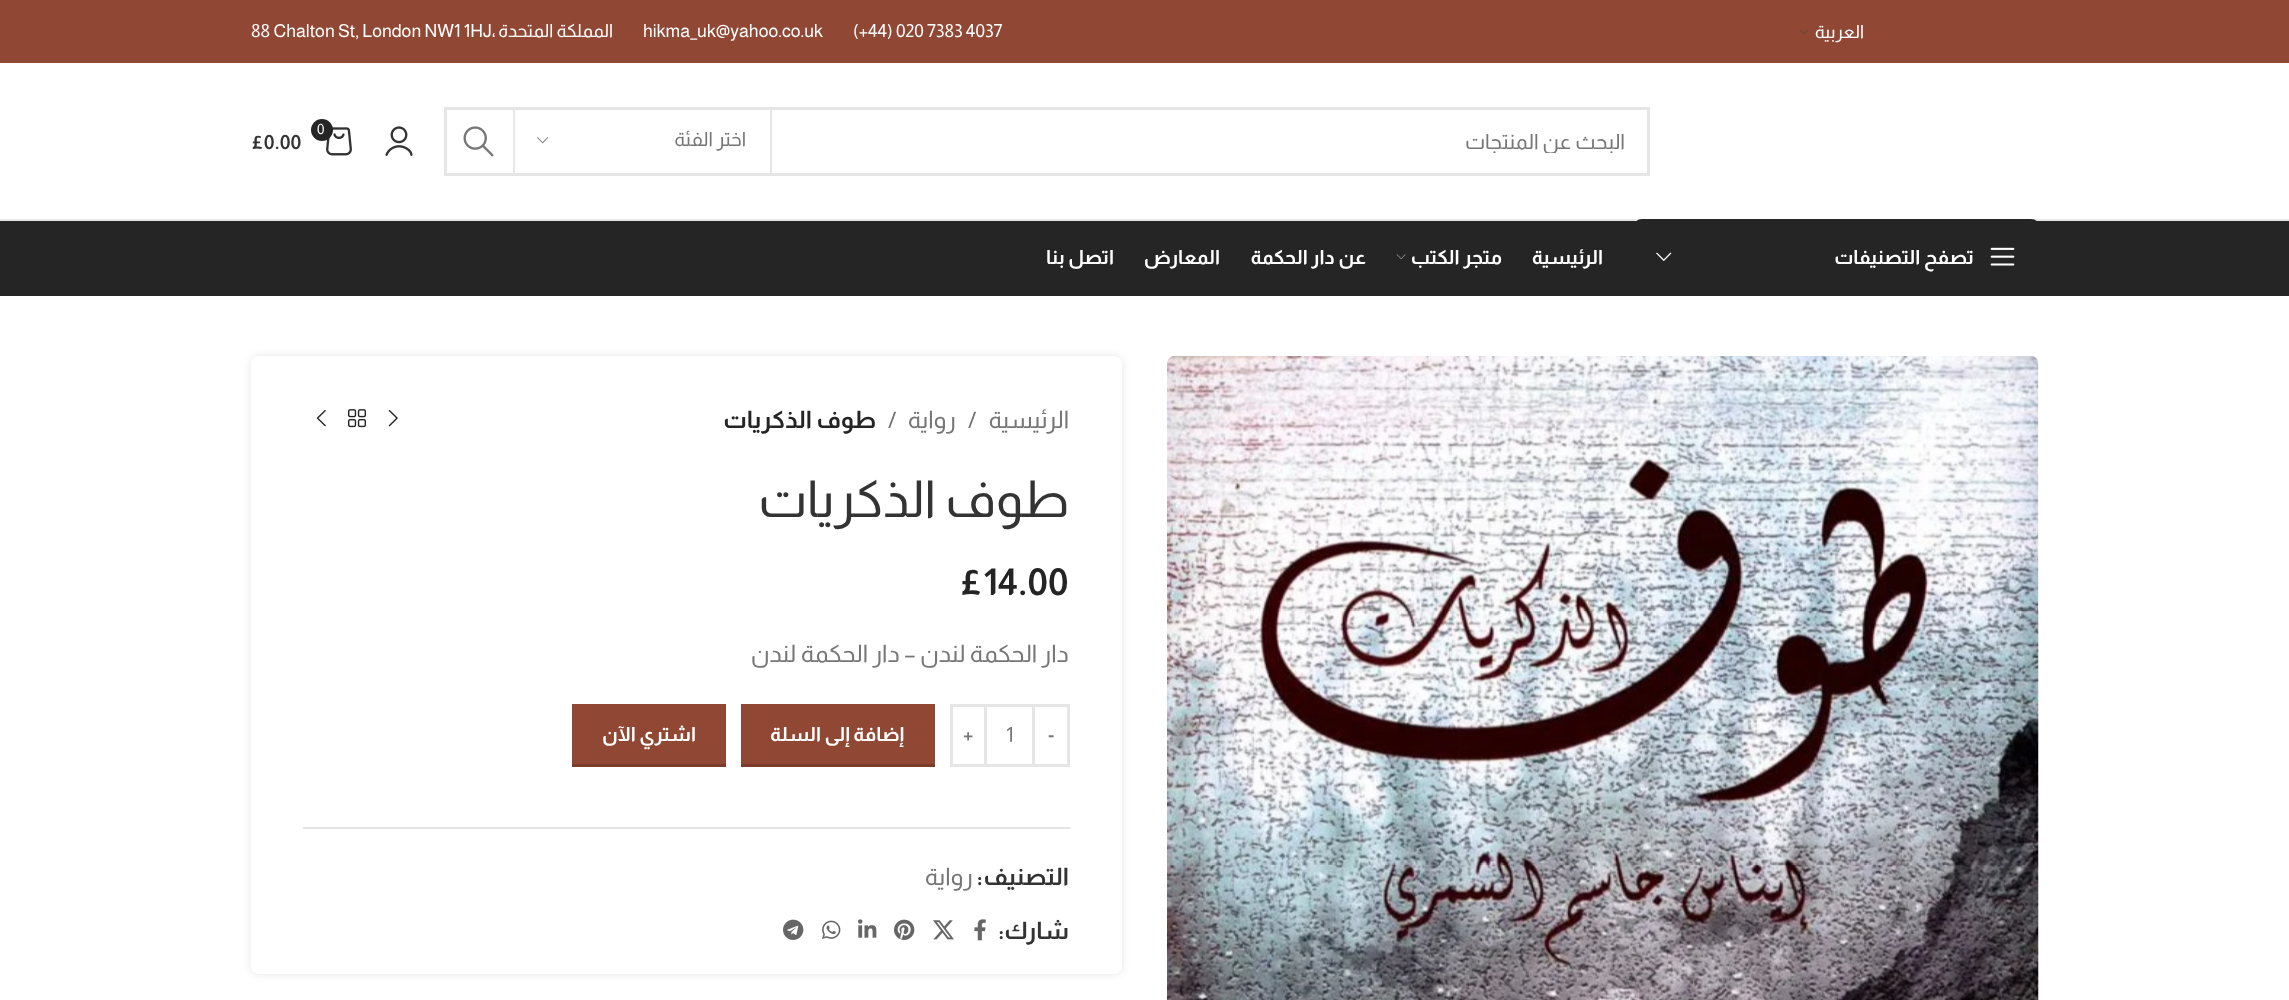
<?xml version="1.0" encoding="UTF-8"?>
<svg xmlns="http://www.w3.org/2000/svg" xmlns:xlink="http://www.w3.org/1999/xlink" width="2289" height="1000">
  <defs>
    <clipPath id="clip1"><rect x="819" y="129" width="806" height="24" /></clipPath>
  </defs>
  <rect width="100%" height="100%" fill="#ffffff" />
  <rect width="2289" height="63" fill="#904834" />
  <image x="1800" y="30" width="9" height="5" xlink:href="image1.png" />
  <rect y="219" width="2289" height="2" fill="#e6e6e6" />
  <rect x="445.5" y="108.5" width="1203" height="66" fill="none" stroke="#e6e6e6" stroke-width="3" />
  <rect x="770" y="110" width="2" height="63" fill="#e6e6e6" />
  <rect x="513" y="110" width="2" height="63" fill="#e6e6e6" />
  <image x="537" y="137" width="11" height="7" xlink:href="image2.png" />
  <image x="463" y="126" width="31" height="31" xlink:href="image3.png" />
  <image x="385" y="126" width="28" height="30" xlink:href="image4.png" />
  <image x="326" y="127" width="26" height="29" xlink:href="image5.png" />
  <circle cx="322" cy="130" r="11" fill="#252525" />
  <rect y="221" width="2289" height="75" fill="#252525" />
  <path d="M 1642 219 h 389 c 4.5 0 8 3.5 8 8 v 69 h -405 v -69 c 0 -4.5 3.5 -8 8 -8 z" fill="#252525" />
  <image x="1990" y="247" width="25" height="19" xlink:href="image6.png" />
  <image x="1656" y="252" width="16" height="9" xlink:href="image7.png" />
  <image x="1396" y="254" width="10" height="6" xlink:href="image8.png" />
  <image x="1167" y="356" width="872" height="644" xlink:href="image9.png" />
  <rect x="251" y="356" width="871" height="618" rx="8" fill="#000000" fill-opacity="0.1" filter="blur(4px)" />
  <rect x="251" y="356" width="871" height="618" rx="8" fill="#ffffff" />
  <image x="388" y="410" width="10" height="17" xlink:href="image10.png" />
  <image x="348" y="409" width="18" height="19" xlink:href="image11.png" />
  <image x="316" y="410" width="10" height="17" xlink:href="image12.png" />
  <rect x="1033.5" y="705.5" width="35" height="60" fill="none" stroke="#e6e6e6" stroke-width="3" />
  <rect x="987" y="704" width="45" height="3" fill="#e6e6e6" />
  <rect x="987" y="764" width="45" height="3" fill="#e6e6e6" />
  <rect x="951.5" y="705.5" width="34" height="60" fill="none" stroke="#e6e6e6" stroke-width="3" />
  <rect x="741" y="704" width="194" height="60" fill="#904834" />
  <rect x="741" y="764" width="194" height="3" fill="#7a3d2c" />
  <rect x="572" y="704" width="154" height="60" fill="#904834" />
  <rect x="572" y="764" width="154" height="3" fill="#7a3d2c" />
  <rect x="303" y="827" width="767" height="2" fill="#e4e4e4" />
  <image x="974" y="919" width="12" height="22" xlink:href="image13.png" />
  <image x="933" y="920" width="21" height="20" xlink:href="image14.png" />
  <image x="894" y="919" width="21" height="21" xlink:href="image15.png" />
  <image x="858" y="919" width="19" height="19" xlink:href="image16.png" />
  <image x="822" y="920" width="19" height="19" xlink:href="image17.png" />
  <image x="783" y="919" width="21" height="21" xlink:href="image18.png" />
  <text x="1864" y="38" style="font-family: Almarai; font-size: 18px; direction: rtl; fill: #ffffff">العربية</text>
  <text x="853" y="37" style="font-family: Almarai; font-size: 18px; fill: #ffffff">(+44) 020 7383 4037</text>
  <text x="643" y="37" style="font-family: Almarai; font-size: 18px; fill: #ffffff">hikma_uk@yahoo.co.uk</text>
  <text x="613" y="37" style="font-family: Almarai; font-size: 18px; direction: rtl; fill: #ffffff">المملكة المتحدة</text>
  <text x="251" y="37" style="font-family: Almarai; font-size: 18px; fill: #ffffff">88 Chalton St, London NW1 1HJ،</text>
  <g clip-path="url(#clip1)">
    <text x="1625" y="149" style="font-family: Almarai; font-size: 21px; direction: rtl; fill: #767676">البحث عن المنتجات</text>
  </g>
  <text x="746" y="146" style="font-family: Almarai; font-size: 19.5px; direction: rtl; fill: #767676">اختر الفئة</text>
  <text x="317" y="134" style="font-family: Almarai; font-size: 14px; fill: #ffffff">0</text>
  <text x="251" y="149" style="font-family: Almarai; font-size: 19.5px; font-weight: bold; fill: #333333">£0.00</text>
  <text x="1974" y="264" style="font-family: Almarai; font-size: 19.5px; font-weight: bold; direction: rtl; fill: #ffffff">تصفح التصنيفات</text>
  <text x="1603" y="264" style="font-family: Almarai; font-size: 19.5px; font-weight: bold; direction: rtl; fill: #ffffff">الرئيسية</text>
  <text x="1502" y="264" style="font-family: Almarai; font-size: 19.5px; font-weight: bold; direction: rtl; fill: #ffffff">متجر الكتب</text>
  <text x="1366" y="264" style="font-family: Almarai; font-size: 19.5px; font-weight: bold; direction: rtl; fill: #ffffff">عن دار الحكمة</text>
  <text x="1220" y="264" style="font-family: Almarai; font-size: 19.5px; font-weight: bold; direction: rtl; fill: #ffffff">المعارض</text>
  <text x="1114" y="264" style="font-family: Almarai; font-size: 19.5px; font-weight: bold; direction: rtl; fill: #ffffff">اتصل بنا</text>
  <text x="1069" y="428" style="font-family: Almarai; font-size: 24px; direction: rtl; fill: #767676">الرئيسية</text>
  <text x="968" y="428" style="font-family: Almarai; font-size: 24px; fill: #767676">/</text>
  <text x="956" y="428" style="font-family: Almarai; font-size: 24px; direction: rtl; fill: #767676">رواية</text>
  <text x="888" y="428" style="font-family: Almarai; font-size: 24px; fill: #767676">/</text>
  <text x="876" y="428" style="font-family: Almarai; font-size: 24px; font-weight: bold; direction: rtl; fill: #242424">طوف الذكريات</text>
  <text x="1069" y="517" style="font-family: Almarai; font-size: 51px; direction: rtl; fill: #333333">طوف الذكريات</text>
  <text x="959" y="595" style="font-family: Almarai; font-size: 37px; font-weight: bold; fill: #242424">£14.00</text>
  <text x="1069" y="662" style="font-family: Almarai; font-size: 24px; direction: rtl; fill: #767676">دار الحكمة لندن – دار الحكمة لندن</text>
  <text x="1048" y="741" style="font-family: Almarai; font-size: 19.5px; font-weight: bold; fill: #767676">-</text>
  <text x="1006" y="742" style="font-family: Almarai; font-size: 21px; fill: #767676">1</text>
  <text x="963" y="741" style="font-family: Almarai; font-size: 19.5px; font-weight: bold; fill: #767676">+</text>
  <text x="904" y="741" style="font-family: Almarai; font-size: 19.5px; font-weight: bold; direction: rtl; fill: #ffffff">إضافة إلى السلة</text>
  <text x="696" y="741" style="font-family: Almarai; font-size: 19.5px; font-weight: bold; direction: rtl; fill: #ffffff">اشتري الآن</text>
  <text x="1069" y="885" style="font-family: Almarai; font-size: 24px; font-weight: bold; direction: rtl; fill: #333333">التصنيف:</text>
  <text x="973" y="885" style="font-family: Almarai; font-size: 24px; direction: rtl; fill: #767676">رواية</text>
  <text x="1069" y="939" style="font-family: Almarai; font-size: 24px; font-weight: bold; direction: rtl; fill: #333333">شارك:</text>
</svg>
